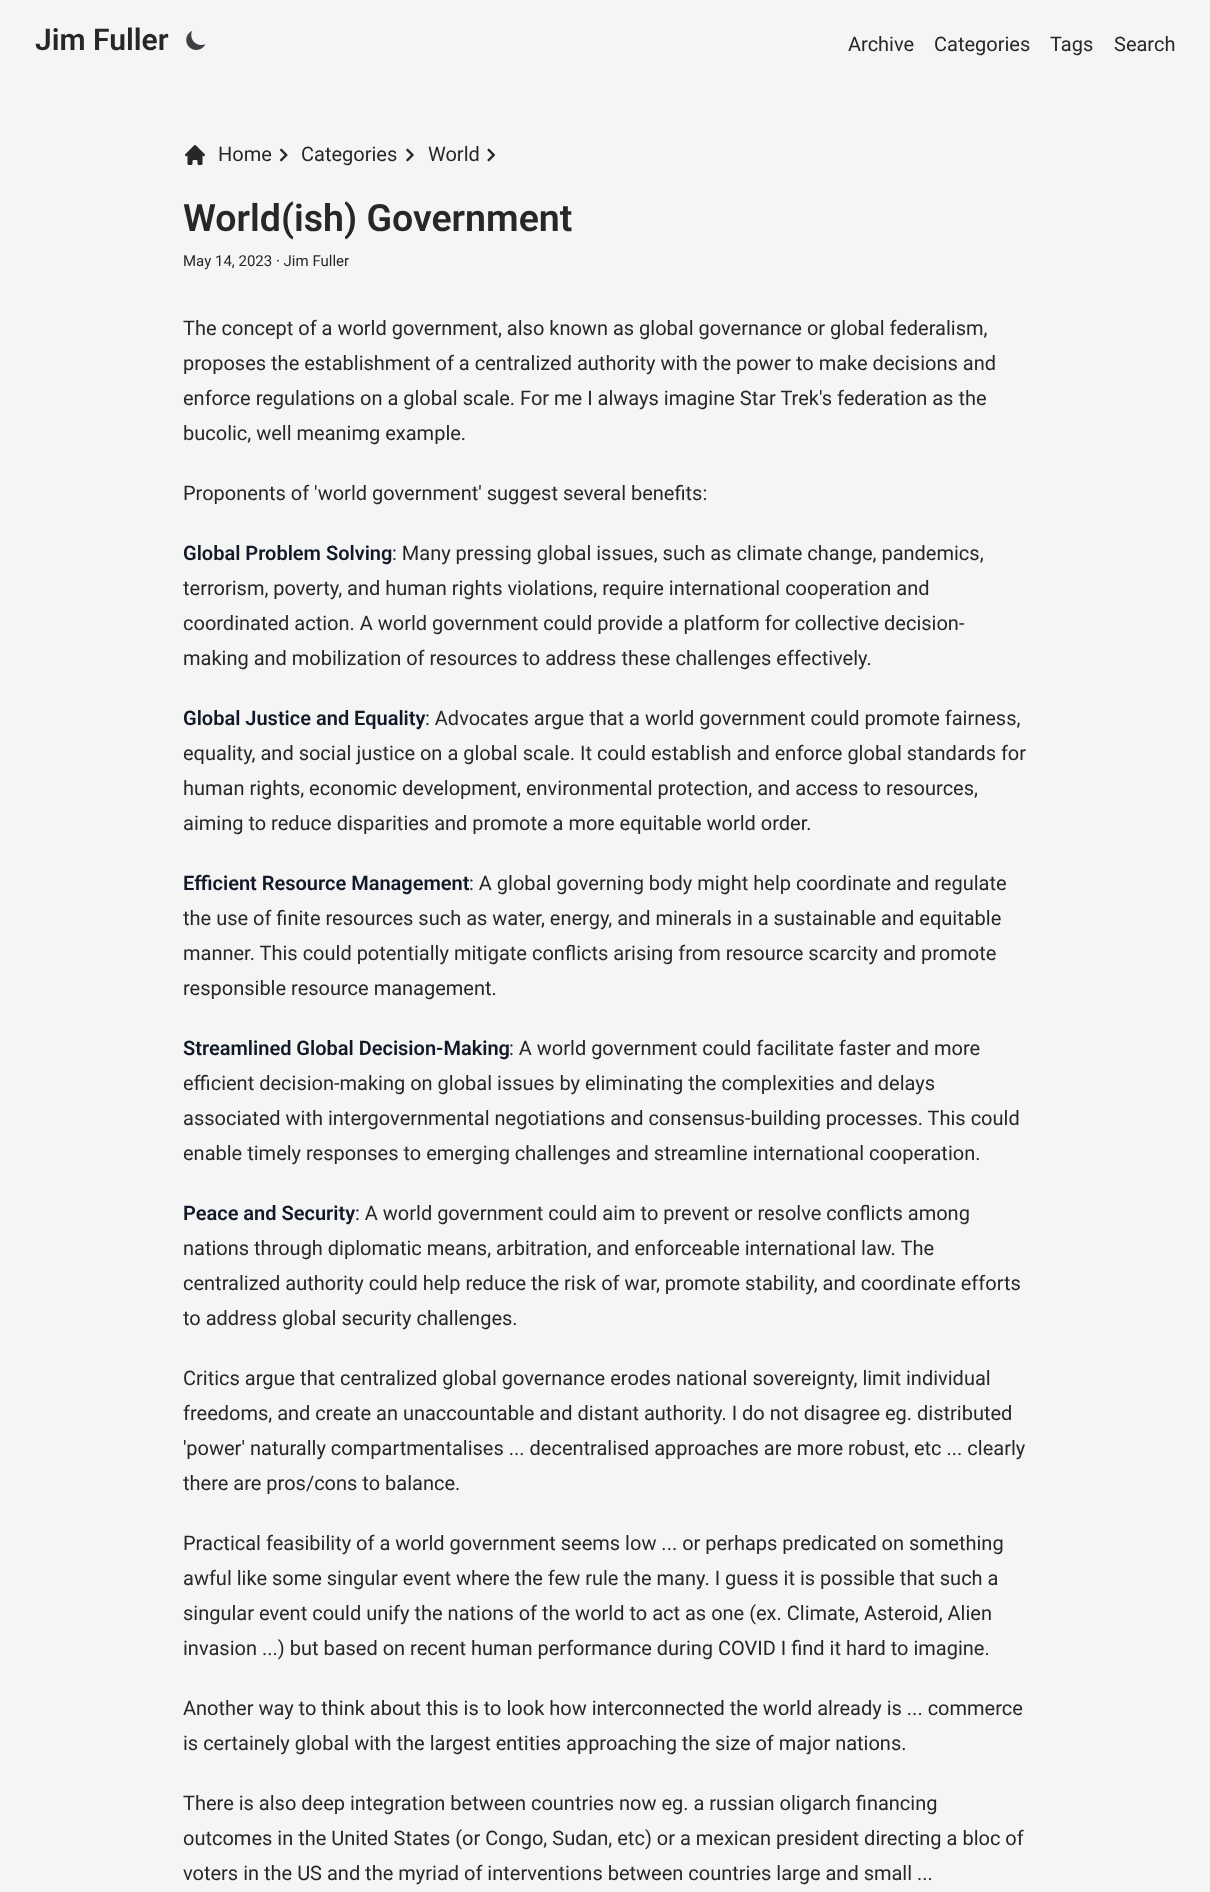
<?xml version="1.0" encoding="UTF-8"?>
<svg xmlns="http://www.w3.org/2000/svg" xmlns:xlink="http://www.w3.org/1999/xlink" width="1210" height="1892">
  <rect width="100%" height="100%" fill="#f5f5f5" />
  <image x="186" y="31" width="20" height="19" xlink:href="image1.png" />
  <image x="185" y="145" width="20" height="20" xlink:href="image2.png" />
  <image x="279" y="148" width="9" height="14" xlink:href="image3.png" />
  <image x="406" y="148" width="8" height="14" xlink:href="image4.png" />
  <image x="487" y="148" width="8" height="14" xlink:href="image5.png" />
  <text x="35" y="50" style="font-family: Roboto; font-size: 30px; font-weight: 600; fill: #27272a">Jim Fuller</text>
  <text x="848" y="51" style="font-family: Roboto; font-size: 20px; fill: #27272a">Archive</text>
  <text x="934" y="51" style="font-family: Roboto; font-size: 20px; fill: #27272a">Categories</text>
  <text x="1050" y="51" style="font-family: Roboto; font-size: 20px; fill: #27272a">Tags</text>
  <text x="1114" y="51" style="font-family: Roboto; font-size: 20px; fill: #27272a">Search</text>
  <text x="218" y="161" style="font-family: Roboto; font-size: 20px; fill: #27272a">Home</text>
  <text x="301" y="161" style="font-family: Roboto; font-size: 20px; fill: #27272a">Categories</text>
  <text x="428" y="161" style="font-family: Roboto; font-size: 20px; fill: #27272a">World</text>
  <text x="183" y="231" style="font-family: Roboto; font-size: 37.5px; font-weight: 600; fill: #27272a">World(ish) Government</text>
  <text x="183" y="266" style="font-family: Roboto; font-size: 15px; fill: #27272a">May 14, 2023 · Jim Fuller</text>
  <text x="183" y="335" style="font-family: Roboto; font-size: 20px; fill: #27272a">The concept of a world government, also known as global governance or global federalism,</text>
  <text x="183" y="370" style="font-family: Roboto; font-size: 20px; fill: #27272a">proposes the establishment of a centralized authority with the power to make decisions and</text>
  <text x="183" y="405" style="font-family: Roboto; font-size: 20px; fill: #27272a">enforce regulations on a global scale. For me I always imagine Star Trek's federation as the</text>
  <text x="183" y="440" style="font-family: Roboto; font-size: 20px; fill: #27272a">bucolic, well meanimg example.</text>
  <text x="183" y="500" style="font-family: Roboto; font-size: 20px; fill: #27272a">Proponents of 'world government' suggest several benefits:</text>
  <text x="183" y="560" style="font-family: Roboto; font-size: 20px; font-weight: 600; fill: #111827">Global Problem Solving</text>
  <text x="392" y="560" style="font-family: Roboto; font-size: 20px; fill: #27272a">: Many pressing global issues, such as climate change, pandemics,</text>
  <text x="183" y="595" style="font-family: Roboto; font-size: 20px; fill: #27272a">terrorism, poverty, and human rights violations, require international cooperation and</text>
  <text x="183" y="630" style="font-family: Roboto; font-size: 20px; fill: #27272a">coordinated action. A world government could provide a platform for collective decision-</text>
  <text x="183" y="665" style="font-family: Roboto; font-size: 20px; fill: #27272a">making and mobilization of resources to address these challenges effectively.</text>
  <text x="183" y="725" style="font-family: Roboto; font-size: 20px; font-weight: 600; fill: #111827">Global Justice and Equality</text>
  <text x="425" y="725" style="font-family: Roboto; font-size: 20px; fill: #27272a">: Advocates argue that a world government could promote fairness,</text>
  <text x="183" y="760" style="font-family: Roboto; font-size: 20px; fill: #27272a">equality, and social justice on a global scale. It could establish and enforce global standards for</text>
  <text x="183" y="795" style="font-family: Roboto; font-size: 20px; fill: #27272a">human rights, economic development, environmental protection, and access to resources,</text>
  <text x="183" y="830" style="font-family: Roboto; font-size: 20px; fill: #27272a">aiming to reduce disparities and promote a more equitable world order.</text>
  <text x="183" y="890" style="font-family: Roboto; font-size: 20px; font-weight: 600; fill: #111827">Efficient Resource Management</text>
  <text x="469" y="890" style="font-family: Roboto; font-size: 20px; fill: #27272a">: A global governing body might help coordinate and regulate</text>
  <text x="183" y="925" style="font-family: Roboto; font-size: 20px; fill: #27272a">the use of finite resources such as water, energy, and minerals in a sustainable and equitable</text>
  <text x="183" y="960" style="font-family: Roboto; font-size: 20px; fill: #27272a">manner. This could potentially mitigate conflicts arising from resource scarcity and promote</text>
  <text x="183" y="995" style="font-family: Roboto; font-size: 20px; fill: #27272a">responsible resource management.</text>
  <text x="183" y="1055" style="font-family: Roboto; font-size: 20px; font-weight: 600; fill: #111827">Streamlined Global Decision-Making</text>
  <text x="509" y="1055" style="font-family: Roboto; font-size: 20px; fill: #27272a">: A world government could facilitate faster and more</text>
  <text x="183" y="1090" style="font-family: Roboto; font-size: 20px; fill: #27272a">efficient decision-making on global issues by eliminating the complexities and delays</text>
  <text x="183" y="1125" style="font-family: Roboto; font-size: 20px; fill: #27272a">associated with intergovernmental negotiations and consensus-building processes. This could</text>
  <text x="183" y="1160" style="font-family: Roboto; font-size: 20px; fill: #27272a">enable timely responses to emerging challenges and streamline international cooperation.</text>
  <text x="183" y="1220" style="font-family: Roboto; font-size: 20px; font-weight: 600; fill: #111827">Peace and Security</text>
  <text x="355" y="1220" style="font-family: Roboto; font-size: 20px; fill: #27272a">: A world government could aim to prevent or resolve conflicts among</text>
  <text x="183" y="1255" style="font-family: Roboto; font-size: 20px; fill: #27272a">nations through diplomatic means, arbitration, and enforceable international law. The</text>
  <text x="183" y="1290" style="font-family: Roboto; font-size: 20px; fill: #27272a">centralized authority could help reduce the risk of war, promote stability, and coordinate efforts</text>
  <text x="183" y="1325" style="font-family: Roboto; font-size: 20px; fill: #27272a">to address global security challenges.</text>
  <text x="183" y="1385" style="font-family: Roboto; font-size: 20px; fill: #27272a">Critics argue that centralized global governance erodes national sovereignty, limit individual</text>
  <text x="183" y="1420" style="font-family: Roboto; font-size: 20px; fill: #27272a">freedoms, and create an unaccountable and distant authority. I do not disagree eg. distributed</text>
  <text x="183" y="1455" style="font-family: Roboto; font-size: 20px; fill: #27272a">'power' naturally compartmentalises ... decentralised approaches are more robust, etc ... clearly</text>
  <text x="183" y="1490" style="font-family: Roboto; font-size: 20px; fill: #27272a">there are pros/cons to balance.</text>
  <text x="183" y="1550" style="font-family: Roboto; font-size: 20px; fill: #27272a">Practical feasibility of a world government seems low ... or perhaps predicated on something</text>
  <text x="183" y="1585" style="font-family: Roboto; font-size: 20px; fill: #27272a">awful like some singular event where the few rule the many. I guess it is possible that such a</text>
  <text x="183" y="1620" style="font-family: Roboto; font-size: 20px; fill: #27272a">singular event could unify the nations of the world to act as one (ex. Climate, Asteroid, Alien</text>
  <text x="183" y="1655" style="font-family: Roboto; font-size: 20px; fill: #27272a">invasion ...) but based on recent human performance during COVID I find it hard to imagine.</text>
  <text x="183" y="1715" style="font-family: Roboto; font-size: 20px; fill: #27272a">Another way to think about this is to look how interconnected the world already is ... commerce</text>
  <text x="183" y="1750" style="font-family: Roboto; font-size: 20px; fill: #27272a">is certainely global with the largest entities approaching the size of major nations.</text>
  <text x="183" y="1810" style="font-family: Roboto; font-size: 20px; fill: #27272a">There is also deep integration between countries now eg. a russian oligarch financing</text>
  <text x="183" y="1845" style="font-family: Roboto; font-size: 20px; fill: #27272a">outcomes in the United States (or Congo, Sudan, etc) or a mexican president directing a bloc of</text>
  <text x="183" y="1880" style="font-family: Roboto; font-size: 20px; fill: #27272a">voters in the US and the myriad of interventions between countries large and small ...</text>
</svg>
